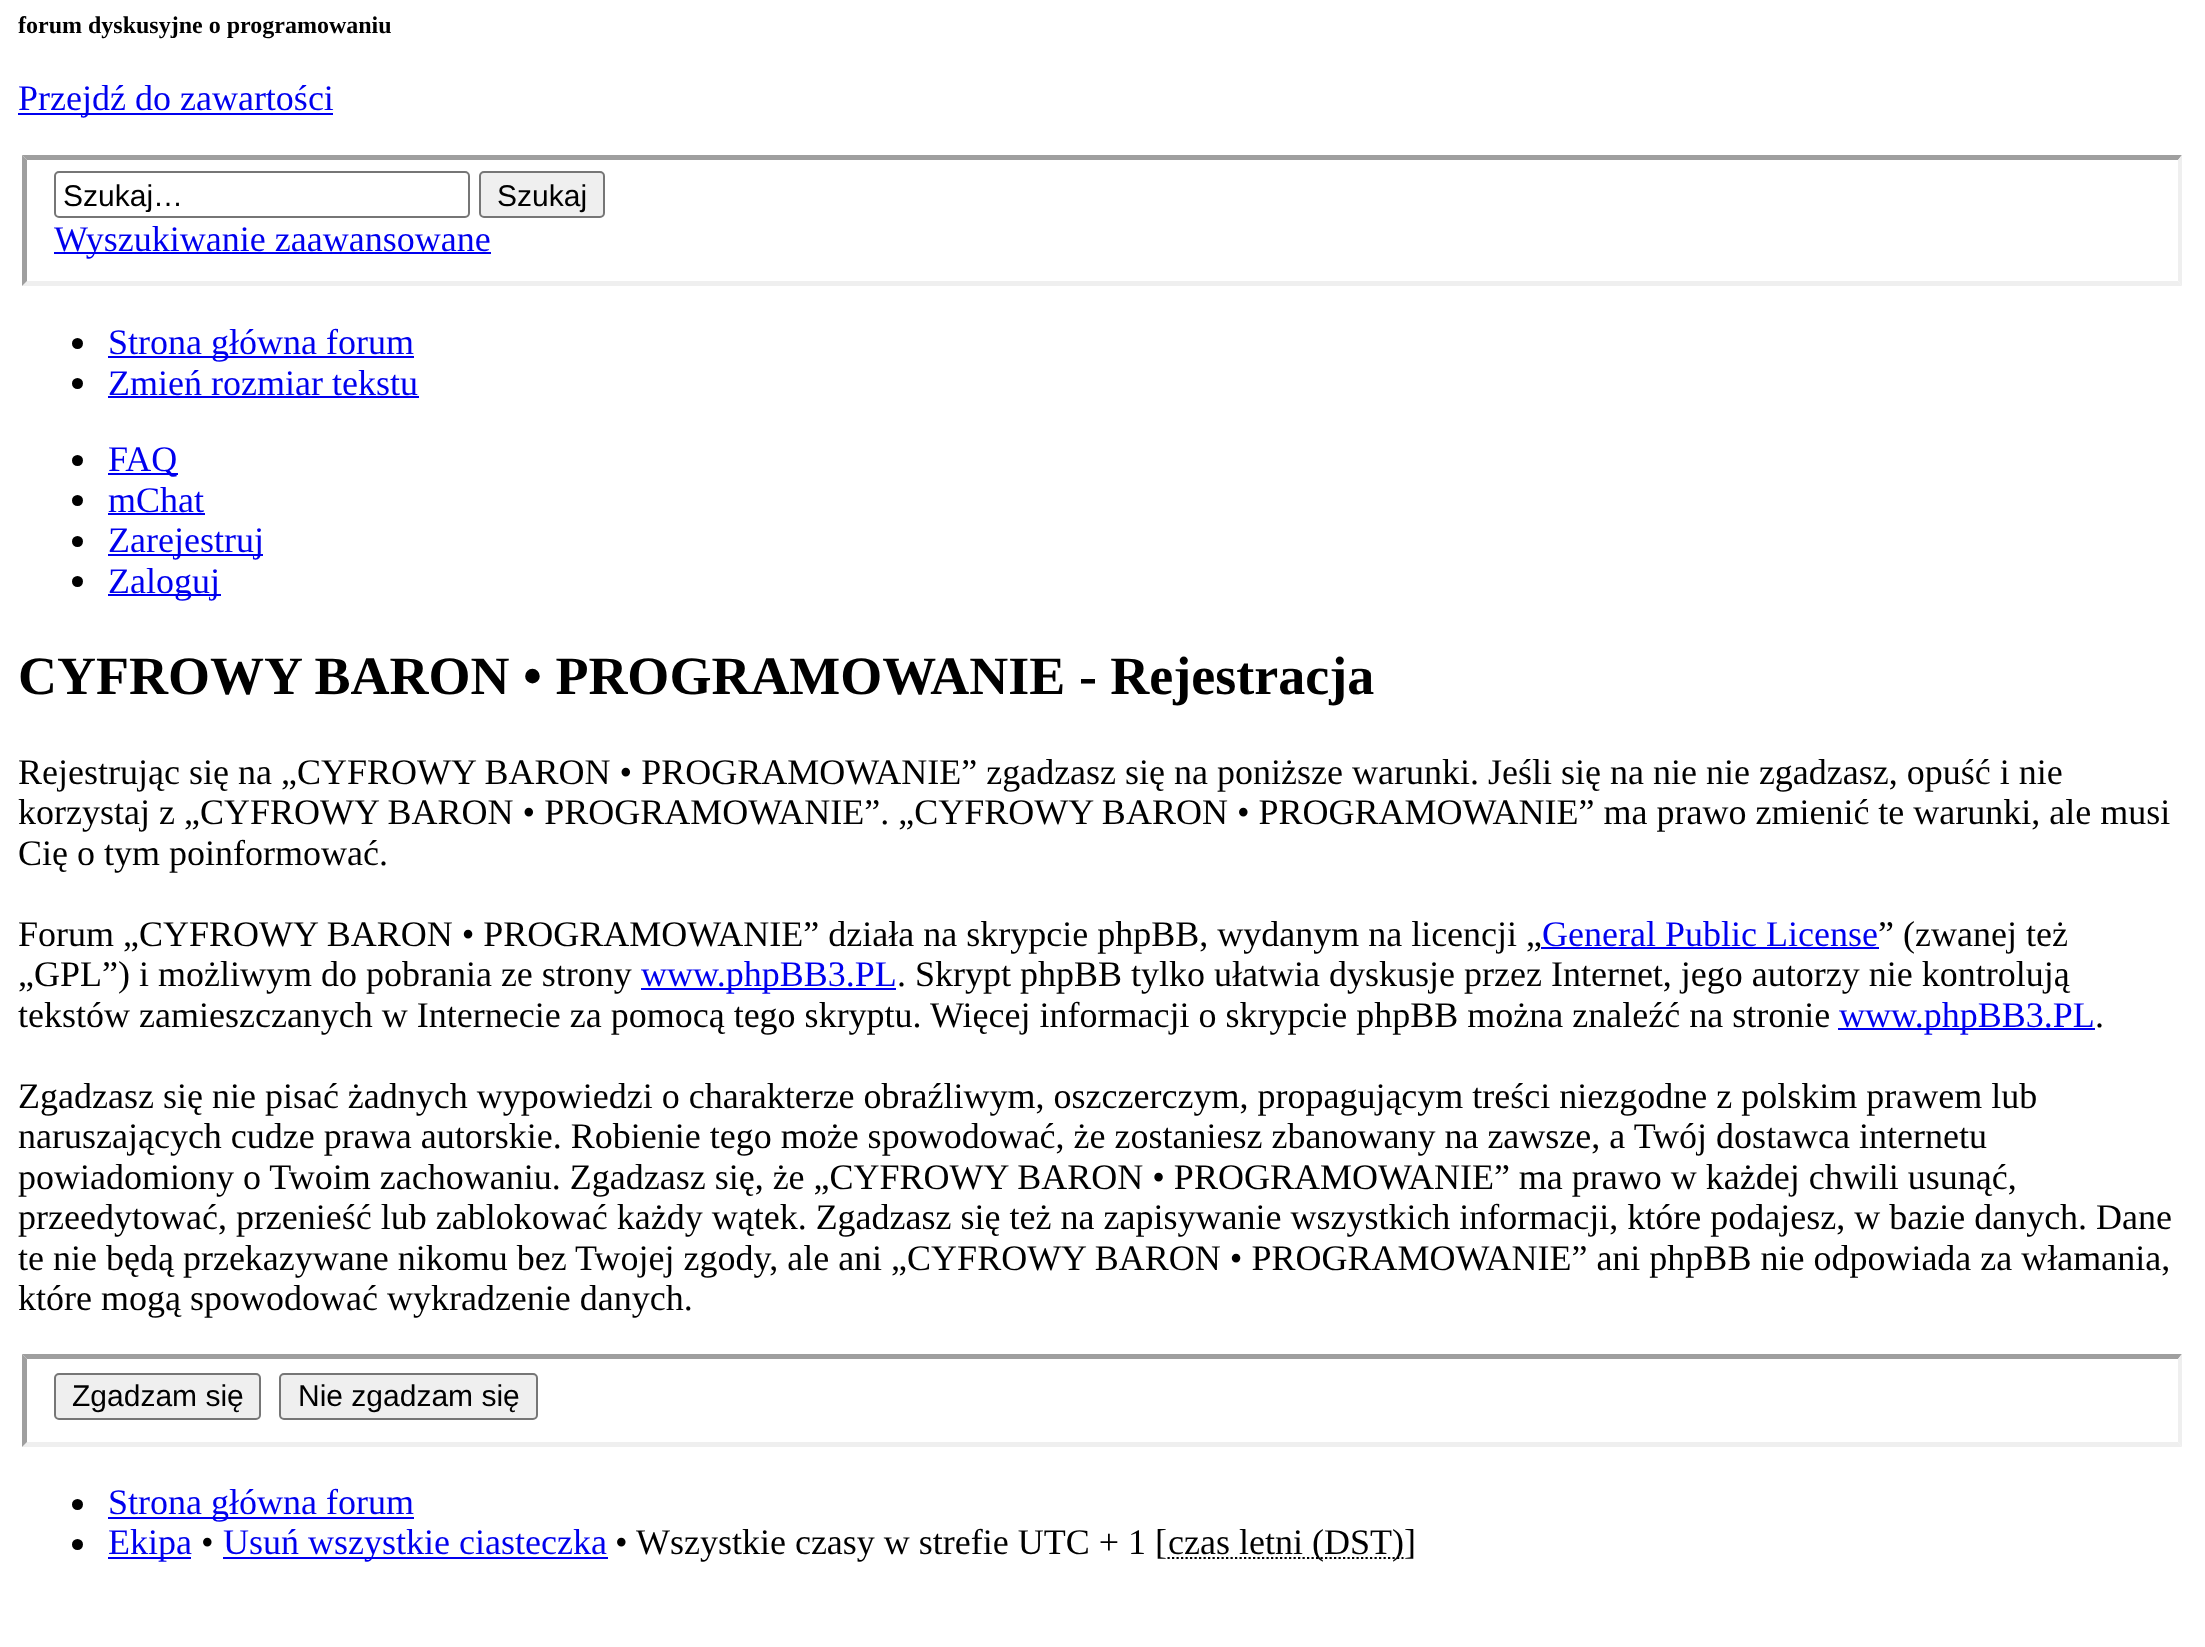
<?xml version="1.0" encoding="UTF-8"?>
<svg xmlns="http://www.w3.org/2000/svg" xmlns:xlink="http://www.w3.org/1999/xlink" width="2205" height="1647">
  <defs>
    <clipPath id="clip1"><rect x="63" y="178" width="398" height="34" /></clipPath>
  </defs>
  <rect width="100%" height="100%" fill="#ffffff" />
  <rect x="18" y="113" width="315" height="2" fill="#0000ee" />
  <path d="M 22 155 h 2160 l -4 5 h -2151 z" fill="#9f9f9f" />
  <path d="M 2182 155 v 131 l -4 -5 v -121 z" fill="#efefef" />
  <path d="M 2182 286 h -2160 l 5 -5 h 2151 z" fill="#efefef" />
  <path d="M 22 286 v -131 l 5 5 v 121 z" fill="#9f9f9f" />
  <rect x="55" y="172" width="414" height="45" rx="4" fill="none" stroke="#767676" stroke-width="2" />
  <rect x="480" y="172" width="124" height="45" rx="4" fill="#efefef" stroke="#767676" stroke-width="2" />
  <rect x="54" y="252" width="437" height="2" fill="#0000ee" />
  <circle cx="77.5" cy="343.5" r="5.5" fill="#000000" />
  <rect x="108" y="356" width="306" height="2" fill="#0000ee" />
  <circle cx="77.5" cy="383.5" r="5.5" fill="#000000" />
  <rect x="108" y="396" width="311" height="2" fill="#0000ee" />
  <circle cx="77.5" cy="460.5" r="5.5" fill="#000000" />
  <rect x="108" y="473" width="70" height="2" fill="#0000ee" />
  <circle cx="77.5" cy="500.5" r="5.5" fill="#000000" />
  <rect x="108" y="513" width="97" height="2" fill="#0000ee" />
  <circle cx="77.5" cy="541.5" r="5.5" fill="#000000" />
  <rect x="108" y="554" width="155" height="2" fill="#0000ee" />
  <circle cx="77.5" cy="581.5" r="5.5" fill="#000000" />
  <rect x="108" y="594" width="113" height="2" fill="#0000ee" />
  <rect x="1541" y="947" width="338" height="2" fill="#0000ee" />
  <rect x="641" y="988" width="255" height="2" fill="#0000ee" />
  <rect x="1838" y="1028" width="257" height="2" fill="#0000ee" />
  <path d="M 22 1354 h 2160 l -4 5 h -2151 z" fill="#9f9f9f" />
  <path d="M 2182 1354 v 93 l -4 -5 v -83 z" fill="#efefef" />
  <path d="M 2182 1447 h -2160 l 5 -5 h 2151 z" fill="#efefef" />
  <path d="M 22 1447 v -93 l 5 5 v 83 z" fill="#9f9f9f" />
  <rect x="55" y="1374" width="205" height="45" rx="4" fill="#efefef" stroke="#767676" stroke-width="2" />
  <rect x="280" y="1374" width="257" height="45" rx="4" fill="#efefef" stroke="#767676" stroke-width="2" />
  <circle cx="77.5" cy="1504.5" r="5.5" fill="#000000" />
  <rect x="108" y="1517" width="306" height="2" fill="#0000ee" />
  <circle cx="77.5" cy="1544.5" r="5.5" fill="#000000" />
  <rect x="108" y="1557" width="83" height="2" fill="#0000ee" />
  <rect x="223" y="1557" width="385" height="2" fill="#0000ee" />
  <path d="M 1167.5 1558 h 236" fill="none" stroke="#000000" stroke-width="2.2" stroke-dasharray="2.25 2.25" />
  <text x="18" y="33" style="font-family: Liberation Serif; font-size: 24px; font-weight: bold; fill: #000000">forum dyskusyjne o programowaniu</text>
  <text x="18" y="110" style="font-family: Liberation Serif; font-size: 36px; fill: #0000ee">Przejdź do zawartości</text>
  <g clip-path="url(#clip1)">
    <text x="63" y="206" style="font-family: Liberation Sans; font-size: 30px; fill: #000000">Szukaj…</text>
  </g>
  <text x="497" y="206" style="font-family: Liberation Sans; font-size: 30px; fill: #000000">Szukaj</text>
  <text x="54" y="251" style="font-family: Liberation Serif; font-size: 36px; fill: #0000ee">Wyszukiwanie zaawansowane</text>
  <text x="108" y="354" style="font-family: Liberation Serif; font-size: 36px; fill: #0000ee">Strona główna forum</text>
  <text x="108" y="395" style="font-family: Liberation Serif; font-size: 36px; fill: #0000ee">Zmień rozmiar tekstu</text>
  <text x="108" y="471" style="font-family: Liberation Serif; font-size: 36px; fill: #0000ee">FAQ</text>
  <text x="108" y="512" style="font-family: Liberation Serif; font-size: 36px; fill: #0000ee">mChat</text>
  <text x="108" y="552" style="font-family: Liberation Serif; font-size: 36px; fill: #0000ee">Zarejestruj</text>
  <text x="108" y="593" style="font-family: Liberation Serif; font-size: 36px; fill: #0000ee">Zaloguj</text>
  <text x="18" y="694" style="font-family: Liberation Serif; font-size: 54px; font-weight: bold; fill: #000000">CYFROWY BARON • PROGRAMOWANIE - Rejestracja</text>
  <text x="18" y="784" style="font-family: Liberation Serif; font-size: 36px; fill: #000000">Rejestrując się na „CYFROWY BARON • PROGRAMOWANIE” zgadzasz się na poniższe warunki. Jeśli się na nie nie zgadzasz, opuść i nie</text>
  <text x="18" y="824" style="font-family: Liberation Serif; font-size: 36px; fill: #000000">korzystaj z „CYFROWY BARON • PROGRAMOWANIE”. „CYFROWY BARON • PROGRAMOWANIE” ma prawo zmienić te warunki, ale musi</text>
  <text x="18" y="865" style="font-family: Liberation Serif; font-size: 36px; fill: #000000">Cię o tym poinformować.</text>
  <text x="18" y="946" style="font-family: Liberation Serif; font-size: 36px; fill: #000000">Forum „CYFROWY BARON • PROGRAMOWANIE” działa na skrypcie phpBB, wydanym na licencji „</text>
  <text x="1542" y="946" style="font-family: Liberation Serif; font-size: 36px; fill: #0000ee">General Public License</text>
  <text x="1878" y="946" style="font-family: Liberation Serif; font-size: 36px; fill: #000000">” (zwanej też</text>
  <text x="18" y="986" style="font-family: Liberation Serif; font-size: 36px; fill: #000000">„GPL”) i możliwym do pobrania ze strony</text>
  <text x="641" y="986" style="font-family: Liberation Serif; font-size: 36px; fill: #0000ee">www.phpBB3.PL</text>
  <text x="897" y="986" style="font-family: Liberation Serif; font-size: 36px; fill: #000000">. Skrypt phpBB tylko ułatwia dyskusje przez Internet, jego autorzy nie kontrolują</text>
  <text x="18" y="1027" style="font-family: Liberation Serif; font-size: 36px; fill: #000000">tekstów zamieszczanych w Internecie za pomocą tego skryptu. Więcej informacji o skrypcie phpBB można znaleźć na stronie</text>
  <text x="1839" y="1027" style="font-family: Liberation Serif; font-size: 36px; fill: #0000ee">www.phpBB3.PL</text>
  <text x="2095" y="1027" style="font-family: Liberation Serif; font-size: 36px; fill: #000000">.</text>
  <text x="18" y="1108" style="font-family: Liberation Serif; font-size: 36px; fill: #000000">Zgadzasz się nie pisać żadnych wypowiedzi o charakterze obraźliwym, oszczerczym, propagującym treści niezgodne z polskim prawem lub</text>
  <text x="18" y="1148" style="font-family: Liberation Serif; font-size: 36px; fill: #000000">naruszających cudze prawa autorskie. Robienie tego może spowodować, że zostaniesz zbanowany na zawsze, a Twój dostawca internetu</text>
  <text x="18" y="1189" style="font-family: Liberation Serif; font-size: 36px; fill: #000000">powiadomiony o Twoim zachowaniu. Zgadzasz się, że „CYFROWY BARON • PROGRAMOWANIE” ma prawo w każdej chwili usunąć,</text>
  <text x="18" y="1229" style="font-family: Liberation Serif; font-size: 36px; fill: #000000">przeedytować, przenieść lub zablokować każdy wątek. Zgadzasz się też na zapisywanie wszystkich informacji, które podajesz, w bazie danych. Dane</text>
  <text x="18" y="1270" style="font-family: Liberation Serif; font-size: 36px; fill: #000000">te nie będą przekazywane nikomu bez Twojej zgody, ale ani „CYFROWY BARON • PROGRAMOWANIE” ani phpBB nie odpowiada za włamania,</text>
  <text x="18" y="1310" style="font-family: Liberation Serif; font-size: 36px; fill: #000000">które mogą spowodować wykradzenie danych.</text>
  <text x="72" y="1406" style="font-family: Liberation Sans; font-size: 30px; fill: #000000">Zgadzam się</text>
  <text x="298" y="1406" style="font-family: Liberation Sans; font-size: 30px; fill: #000000">Nie zgadzam się</text>
  <text x="108" y="1514" style="font-family: Liberation Serif; font-size: 36px; fill: #0000ee">Strona główna forum</text>
  <text x="108" y="1554" style="font-family: Liberation Serif; font-size: 36px; fill: #0000ee">Ekipa</text>
  <text x="201" y="1554" style="font-family: Liberation Serif; font-size: 36px; fill: #000000">•</text>
  <text x="223" y="1554" style="font-family: Liberation Serif; font-size: 36px; fill: #0000ee">Usuń wszystkie ciasteczka</text>
  <text x="615" y="1554" style="font-family: Liberation Serif; font-size: 36px; fill: #000000">• Wszystkie czasy w strefie UTC + 1 [</text>
  <text x="1168" y="1554" style="font-family: Liberation Serif; font-size: 36px; fill: #000000">czas letni (DST)]</text>
</svg>
